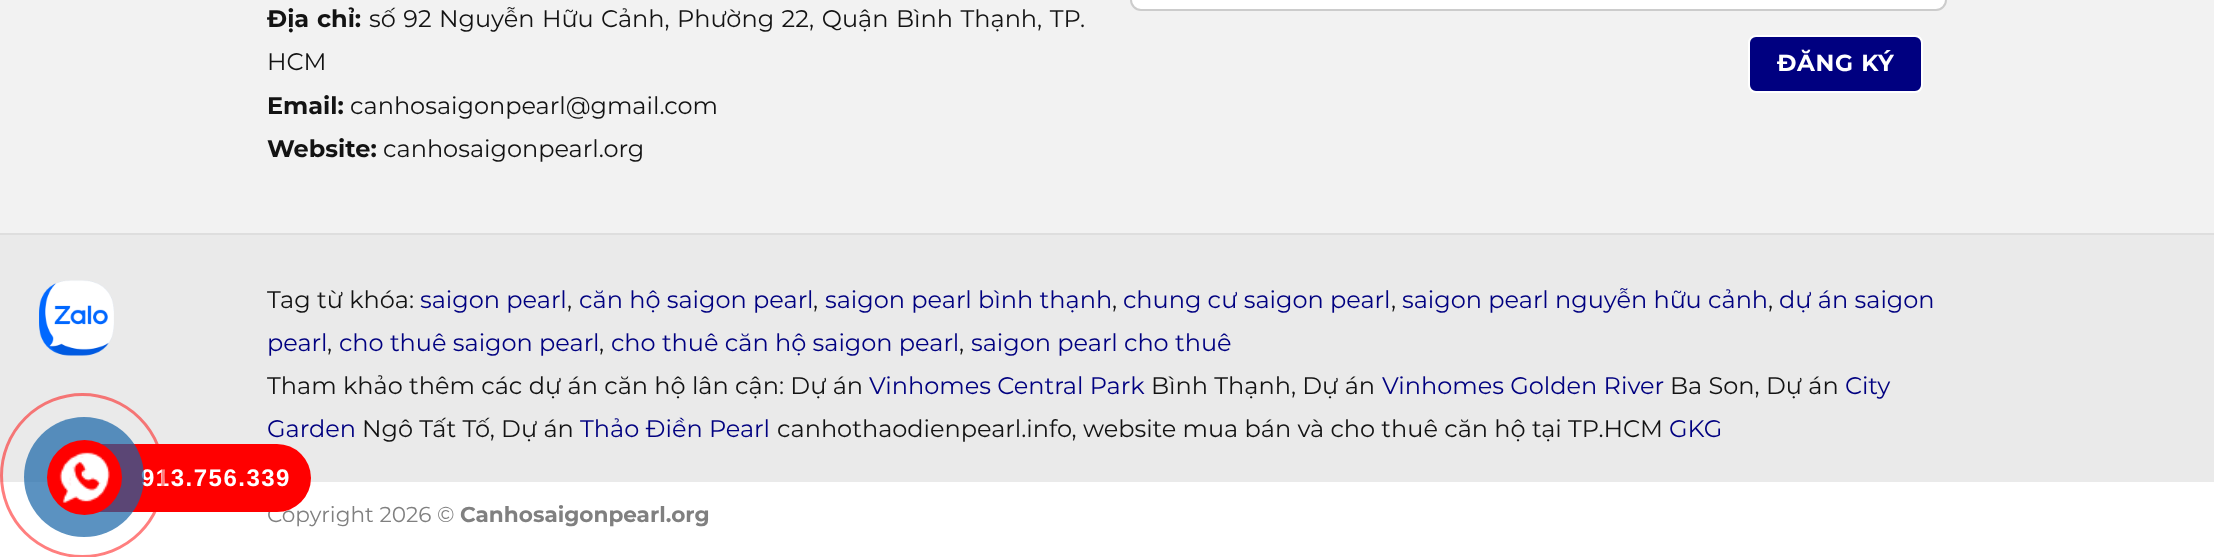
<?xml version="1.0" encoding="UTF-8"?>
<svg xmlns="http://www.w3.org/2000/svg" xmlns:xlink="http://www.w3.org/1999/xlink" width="2214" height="557">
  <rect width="100%" height="100%" fill="#ffffff" />
  <rect y="235" width="2214" height="247" fill="#eaeaea" />
  <image x="39" y="280" width="75" height="76" xlink:href="image1.png" />
  <rect width="2214" height="233" fill="#f2f2f2" />
  <rect x="1131" y="-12" width="815" height="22" rx="10" fill="#ffffff" stroke="#cccccc" stroke-width="2" />
  <rect x="1749" y="36" width="173" height="56" rx="7" fill="#000080" stroke="#ffffff" stroke-width="2" />
  <rect y="233" width="2214" height="2" fill="#dedede" />
  <text x="267" y="27" word-spacing="1" style="font-family: Montserrat; font-size: 24px; font-weight: bold; fill: #131313">Địa chỉ:</text>
  <text x="369" y="27" word-spacing="1.25" style="font-family: Montserrat; font-size: 24px; fill: #131313">số 92 Nguyễn Hữu Cảnh, Phường 22, Quận Bình Thạnh, TP.</text>
  <text x="267" y="70" style="font-family: Montserrat; font-size: 24px; fill: #131313">HCM</text>
  <text x="267" y="114" style="font-family: Montserrat; font-size: 24px; font-weight: bold; fill: #131313">Email:</text>
  <text x="350" y="114" style="font-family: Montserrat; font-size: 24px; fill: #131313">canhosaigonpearl@gmail.com</text>
  <text x="267" y="157" style="font-family: Montserrat; font-size: 24px; font-weight: bold; fill: #131313">Website:</text>
  <text x="383" y="157" style="font-family: Montserrat; font-size: 24px; fill: #131313">canhosaigonpearl.org</text>
  <text x="1777" y="71" style="font-family: Montserrat; font-size: 23.25px; font-weight: bold; letter-spacing: 0.75px; fill: #ffffff">ĐĂNG KÝ</text>
  <text x="267" y="308" style="font-family: Montserrat; font-size: 24px; fill: #131313">Tag từ khóa:</text>
  <text x="420" y="308" style="font-family: Montserrat; font-size: 24px; fill: #000080">saigon pearl</text>
  <text x="567" y="308" style="font-family: Montserrat; font-size: 24px; fill: #131313">,</text>
  <text x="579" y="308" style="font-family: Montserrat; font-size: 24px; fill: #000080">căn hộ saigon pearl</text>
  <text x="813" y="308" style="font-family: Montserrat; font-size: 24px; fill: #131313">,</text>
  <text x="825" y="308" style="font-family: Montserrat; font-size: 24px; fill: #000080">saigon pearl bình thạnh</text>
  <text x="1112" y="308" style="font-family: Montserrat; font-size: 24px; fill: #131313">,</text>
  <text x="1123" y="308" style="font-family: Montserrat; font-size: 24px; fill: #000080">chung cư saigon pearl</text>
  <text x="1391" y="308" style="font-family: Montserrat; font-size: 24px; fill: #131313">,</text>
  <text x="1402" y="308" style="font-family: Montserrat; font-size: 24px; fill: #000080">saigon pearl nguyễn hữu cảnh</text>
  <text x="1768" y="308" style="font-family: Montserrat; font-size: 24px; fill: #131313">,</text>
  <text x="1779" y="308" style="font-family: Montserrat; font-size: 24px; fill: #000080">dự án saigon</text>
  <text x="267" y="351" style="font-family: Montserrat; font-size: 24px; fill: #000080">pearl</text>
  <text x="327" y="351" style="font-family: Montserrat; font-size: 24px; fill: #131313">,</text>
  <text x="339" y="351" style="font-family: Montserrat; font-size: 24px; fill: #000080">cho thuê saigon pearl</text>
  <text x="599" y="351" style="font-family: Montserrat; font-size: 24px; fill: #131313">,</text>
  <text x="611" y="351" style="font-family: Montserrat; font-size: 24px; fill: #000080">cho thuê căn hộ saigon pearl</text>
  <text x="959" y="351" style="font-family: Montserrat; font-size: 24px; fill: #131313">,</text>
  <text x="971" y="351" style="font-family: Montserrat; font-size: 24px; fill: #000080">saigon pearl cho thuê</text>
  <text x="267" y="394" style="font-family: Montserrat; font-size: 24px; fill: #131313">Tham khảo thêm các dự án căn hộ lân cận: Dự án</text>
  <text x="869" y="394" style="font-family: Montserrat; font-size: 24px; fill: #000080">Vinhomes Central Park</text>
  <text x="1151" y="394" style="font-family: Montserrat; font-size: 24px; fill: #131313">Bình Thạnh, Dự án</text>
  <text x="1382" y="394" style="font-family: Montserrat; font-size: 24px; fill: #000080">Vinhomes Golden River</text>
  <text x="1670" y="394" style="font-family: Montserrat; font-size: 24px; fill: #131313">Ba Son, Dự án</text>
  <text x="1845" y="394" style="font-family: Montserrat; font-size: 24px; fill: #000080">City</text>
  <text x="267" y="437" style="font-family: Montserrat; font-size: 24px; fill: #000080">Garden</text>
  <text x="362" y="437" style="font-family: Montserrat; font-size: 24px; fill: #131313">Ngô Tất Tố, Dự án</text>
  <text x="580" y="437" style="font-family: Montserrat; font-size: 24px; fill: #000080">Thảo Điền Pearl</text>
  <text x="777" y="437" style="font-family: Montserrat; font-size: 24px; fill: #131313">canhothaodienpearl.info, website mua bán và cho thuê căn hộ tại TP.HCM</text>
  <text x="1669" y="437" style="font-family: Montserrat; font-size: 24px; fill: #000080">GKG</text>
  <text x="267" y="522" style="font-family: Montserrat; font-size: 21.6px; fill: #808080">Copyright 2026 ©</text>
  <text x="460" y="522" style="font-family: Montserrat; font-size: 21.6px; font-weight: bold; fill: #808080">Canhosaigonpearl.org</text>
  <rect x="63" y="444" width="248" height="68" rx="34" fill="#ff0000" />
  <text x="141" y="486" style="font-family: Liberation Sans; font-size: 24px; font-weight: bold; letter-spacing: 1.5px; fill: #ffffff">913.756.339</text>
  <circle cx="82.5" cy="475.5" r="81" fill="none" stroke="#ff0000" stroke-opacity="0.5" stroke-width="3" />
  <circle cx="84" cy="477" r="60" fill="#1564a7" fill-opacity="0.7" />
  <circle cx="84.5" cy="477.5" r="37.5" fill="#ff0000" />
  <image x="59" y="452" width="51" height="51" xlink:href="image2.png" />
</svg>
